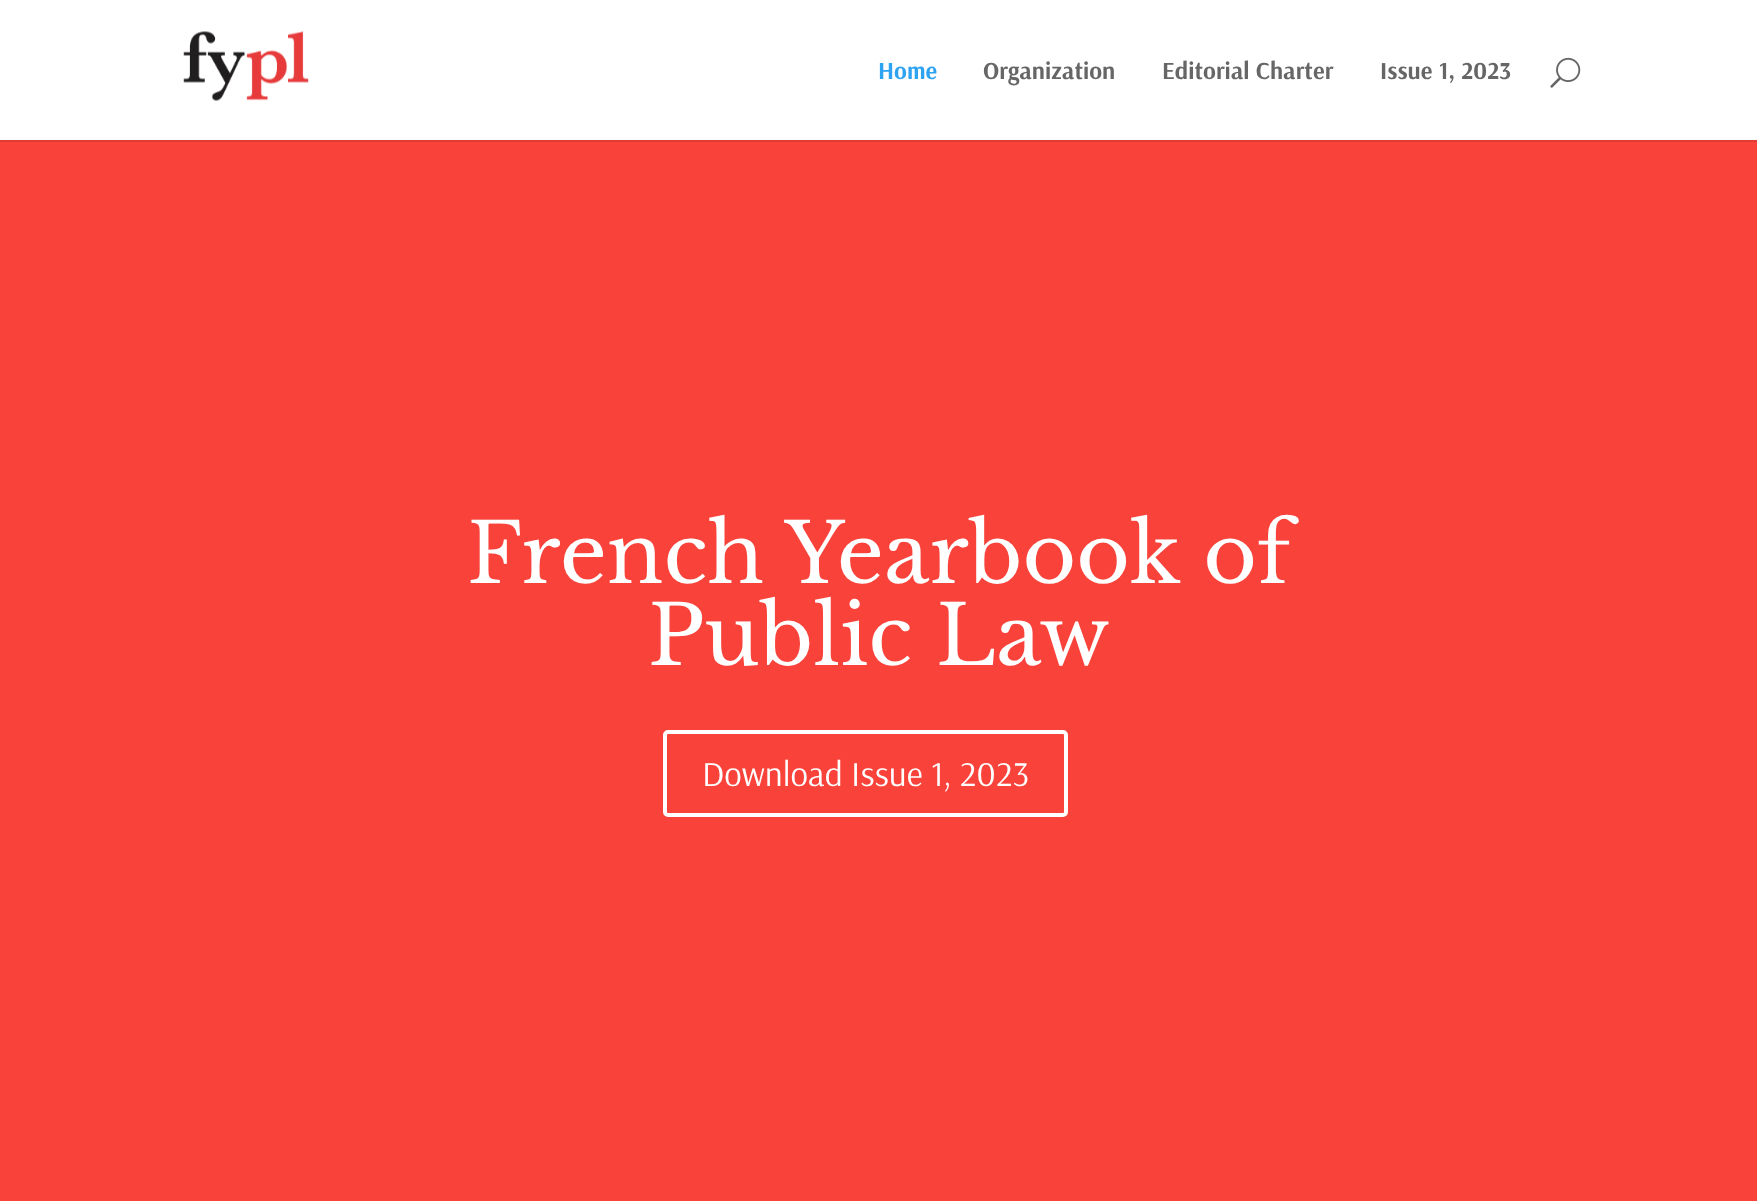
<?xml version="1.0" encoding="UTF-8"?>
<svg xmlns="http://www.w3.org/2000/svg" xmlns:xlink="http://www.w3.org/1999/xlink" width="1757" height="1201">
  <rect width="100%" height="100%" fill="#f9423a" />
  <rect y="140" width="1757" height="2" fill="#e03b34" />
  <rect width="1757" height="140" fill="#ffffff" />
  <image x="183" y="31" width="126" height="70" xlink:href="image1.png" />
  <image x="1550" y="57" width="31" height="31" xlink:href="image2.png" />
  <rect x="665" y="732" width="401" height="83" rx="3" fill="none" stroke="#ffffff" stroke-width="4" />
  <text x="878" y="79" style="font-family: Arsenal; font-size: 24.5px; font-weight: bold; fill: #2ea3f2">Home</text>
  <text x="983" y="79" style="font-family: Arsenal; font-size: 24.5px; font-weight: bold; fill: #666666">Organization</text>
  <text x="1162" y="79" style="font-family: Arsenal; font-size: 24.5px; font-weight: bold; fill: #666666">Editorial Charter</text>
  <text x="1380" y="79" style="font-family: Arsenal; font-size: 24.5px; font-weight: bold; fill: #666666">Issue 1, 2023</text>
  <text x="467" y="583" style="font-family: Libre Baskerville; font-size: 82.25px; fill: #ffffff">French Yearbook of</text>
  <text x="648" y="665" style="font-family: Libre Baskerville; font-size: 82.25px; fill: #ffffff">Public Law</text>
  <text x="702" y="786" style="font-family: Arsenal; font-size: 35px; fill: #ffffff">Download Issue 1, 2023</text>
</svg>
